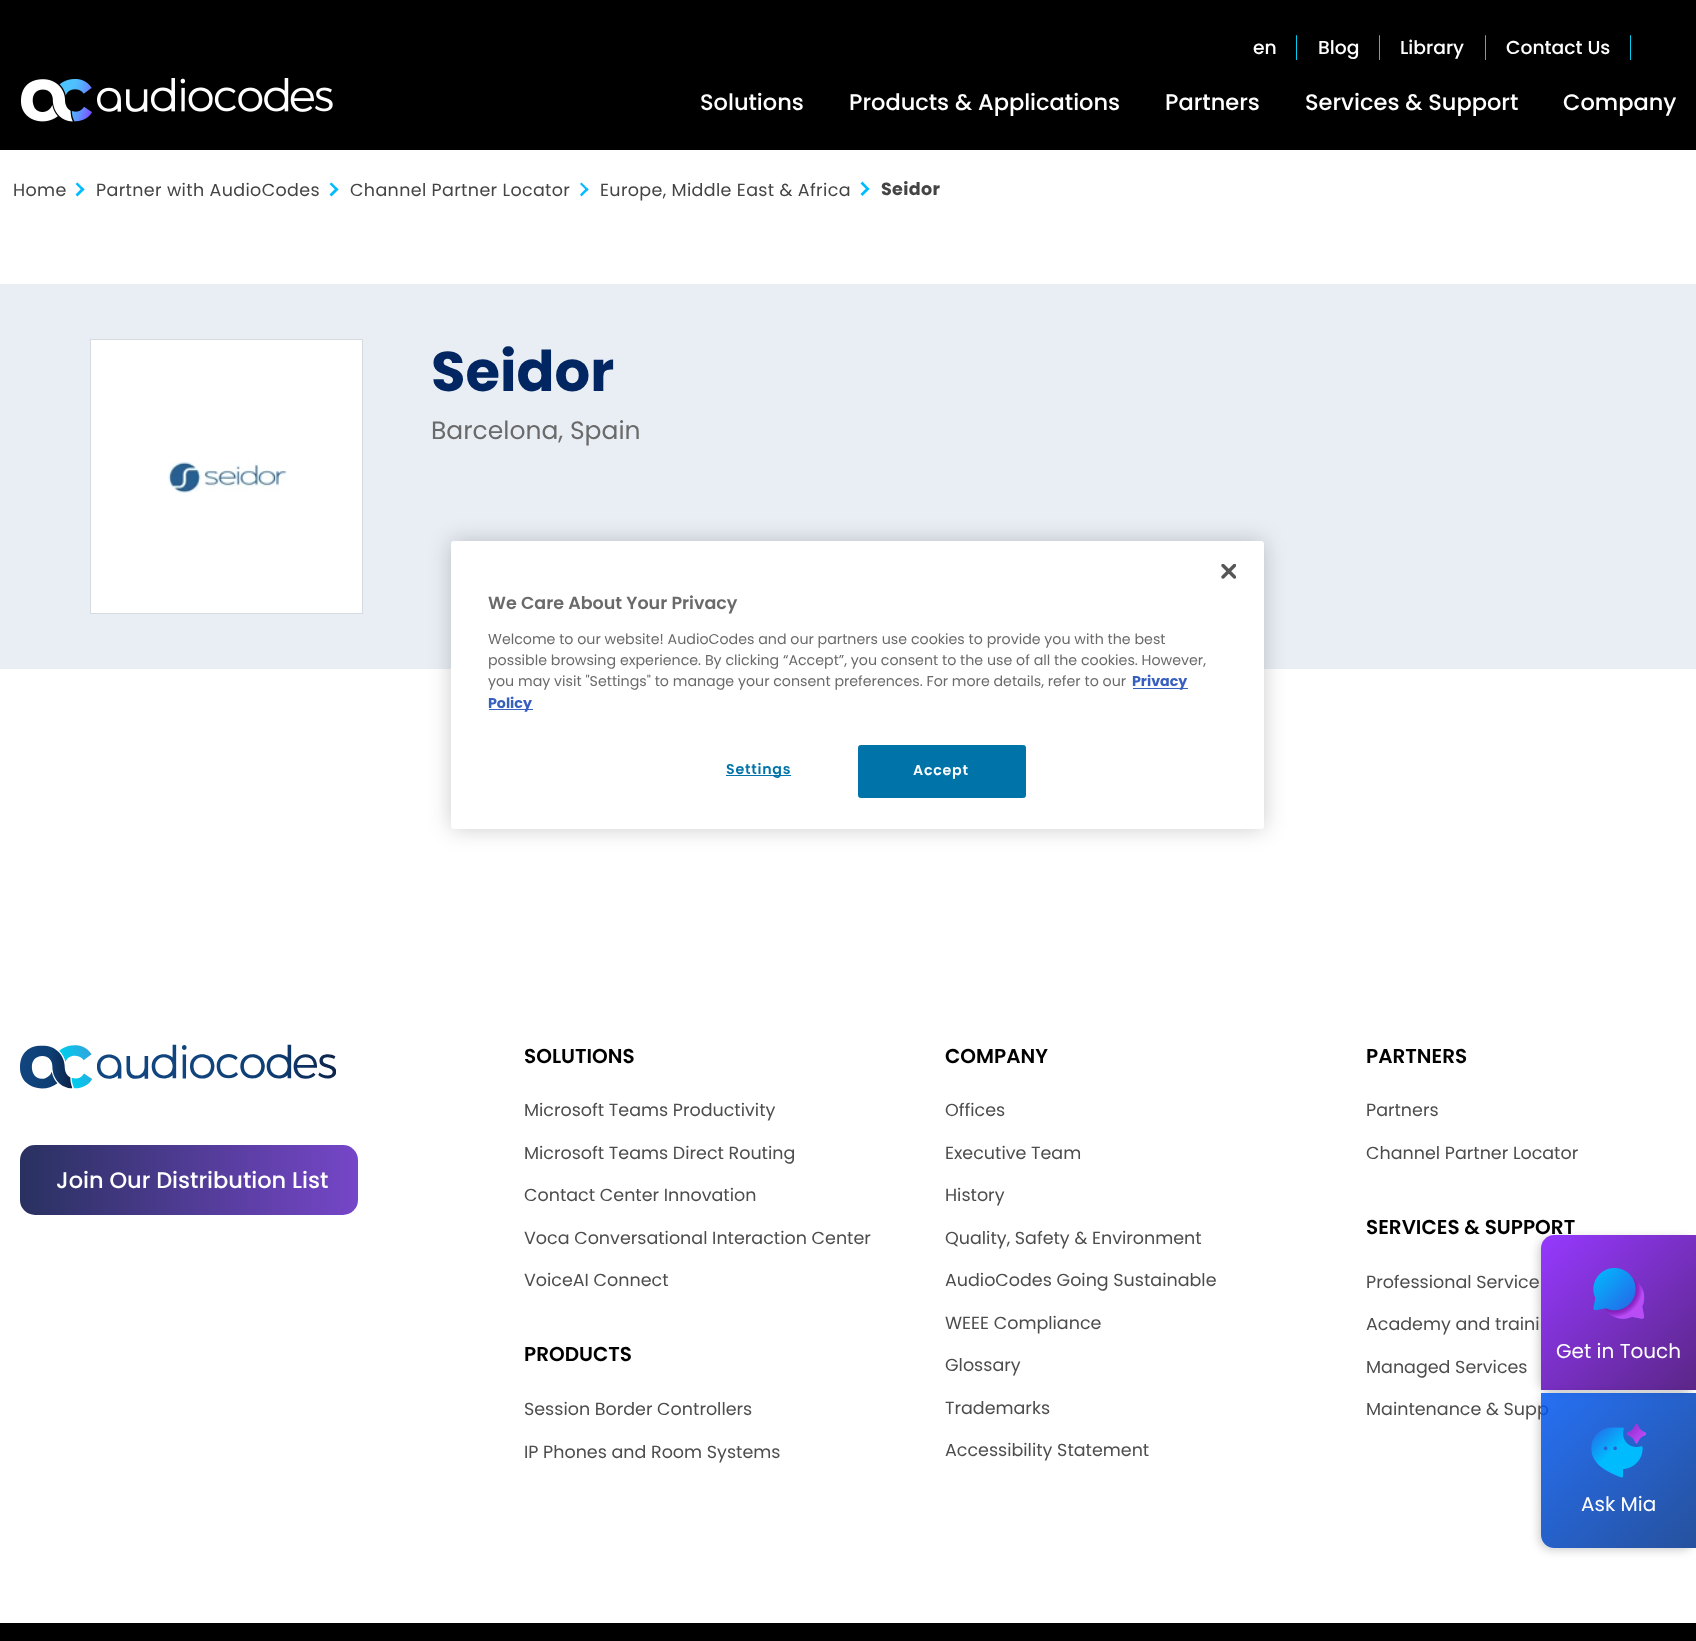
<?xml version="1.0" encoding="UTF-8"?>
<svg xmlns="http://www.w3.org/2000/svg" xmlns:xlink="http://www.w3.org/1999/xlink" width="1696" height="1641">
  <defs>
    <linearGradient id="g1" gradientUnits="userSpaceOnUse" x1="20" y1="1180" x2="358" y2="1180"><stop offset="0" stop-color="#293160" /><stop offset="1" stop-color="#7646c8" /></linearGradient>
    <clipPath id="clip1"><path d="M 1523 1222 h 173 v 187 h -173 z m 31 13 h 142 v 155 h -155 v -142 c 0 -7 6 -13 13 -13 z" clip-rule="evenodd" /></clipPath>
    <linearGradient id="g2" gradientUnits="userSpaceOnUse" x1="1696" y1="1390" x2="1541" y2="1235"><stop offset="0" stop-color="#3e0072" stop-opacity="0.85" /><stop offset="1" stop-color="#8316ff" stop-opacity="0.85" /></linearGradient>
    <clipPath id="clip2"><path d="M 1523 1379 h 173 v 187 h -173 z m 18 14 h 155 v 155 h -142 c -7 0 -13 -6 -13 -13 z" clip-rule="evenodd" /></clipPath>
    <linearGradient id="g3" gradientUnits="userSpaceOnUse" x1="1696" y1="1548" x2="1541" y2="1393"><stop offset="0" stop-color="#00328c" stop-opacity="0.85" /><stop offset="1" stop-color="#0057f2" stop-opacity="0.85" /></linearGradient>
  </defs>
  <rect width="100%" height="100%" fill="#ffffff" />
  <rect width="1696" height="150" fill="#000000" />
  <image x="20" y="78" width="313" height="44" xlink:href="image1.png" />
  <rect x="1296" y="35" width="1" height="25" rx="0.5" fill="#00cced" />
  <rect x="1379" y="35" width="1" height="25" rx="0.5" fill="#00cced" />
  <rect x="1485" y="35" width="1" height="25" rx="0.5" fill="#00cced" />
  <rect x="1630" y="35" width="1" height="25" rx="0.5" fill="#00cced" />
  <path d="M 77.5 182.5 l 7 7 l -2 1.5 l -7 -7 z" fill="#00bcff" />
  <path d="M 82.5 187.5 l 2 2 l -7 7 l -2 -2 z" fill="#00bcff" />
  <path d="M 331.5 182.5 l 7 7 l -2 1.5 l -7 -7 z" fill="#00bcff" />
  <path d="M 336.5 187.5 l 2 2 l -7 7 l -2 -2 z" fill="#00bcff" />
  <path d="M 581.5 182.5 l 7 7 l -1.5 1.5 l -7 -7 z" fill="#00bcff" />
  <path d="M 587 187.5 l 1.5 2 l -7 7 l -1.5 -2 z" fill="#00bcff" />
  <path d="M 862.5 181.5 l 7 7.5 l -2 1.5 l -7 -7 z" fill="#00bcff" />
  <path d="M 867.5 187 l 2 2 l -7 7 l -2 -2 z" fill="#00bcff" />
  <rect y="284" width="1696" height="385" fill="#e9eef5" />
  <rect x="90.5" y="339.5" width="272" height="274" fill="#ffffff" stroke="#d6dae1" />
  <image x="168" y="461" width="119" height="35" xlink:href="image2.png" />
  <image x="20" y="1044" width="316" height="45" xlink:href="image3.png" />
  <rect x="20" y="1145" width="338" height="70" rx="15" fill="url(#g1)" />
  <rect y="1623" width="1696" height="18" fill="#000000" />
  <g clip-path="url(#clip1)">
    <rect x="1539" y="1238" width="155" height="155" rx="13" fill="#000000" fill-opacity="0.2" filter="blur(5px)" />
  </g>
  <path d="M 1554 1235 h 142 v 155 h -155 v -142 c 0 -7 6 -13 13 -13 z" fill="url(#g2)" />
  <image x="1593" y="1267" width="52" height="52" xlink:href="image4.png" />
  <g clip-path="url(#clip2)">
    <rect x="1539" y="1395" width="155" height="155" rx="13" fill="#000000" fill-opacity="0.2" filter="blur(5px)" />
  </g>
  <rect x="451" y="541" width="813" height="288" rx="3" fill="#000000" fill-opacity="0.2" filter="blur(11px)" />
  <rect x="451" y="541" width="813" height="288" rx="3" fill="#ffffff" />
  <image x="1221" y="564" width="15" height="15" xlink:href="image6.png" />
  <rect x="1133" y="688" width="55" height="1" fill="#3860be" />
  <rect x="489" y="709" width="44" height="1" fill="#3860be" />
  <rect x="726" y="775" width="65" height="1" fill="#0073a8" />
  <rect x="858.5" y="745.5" width="167" height="52" rx="2" fill="#0073a8" stroke="#0073a8" />
  <text x="1253" y="54" style="font-family: Poppins; font-size: 18.75px; font-weight: 500; fill: #ffffff">en</text>
  <text x="1318" y="54" style="font-family: Poppins; font-size: 18.75px; font-weight: 500; fill: #ffffff">Blog</text>
  <text x="1400" y="54" style="font-family: Poppins; font-size: 18.75px; font-weight: 500; fill: #ffffff">Library</text>
  <text x="1506" y="54" style="font-family: Poppins; font-size: 18.75px; font-weight: 500; fill: #ffffff">Contact Us</text>
  <text x="700" y="110" style="font-family: Poppins; font-size: 22.5px; font-weight: 500; fill: #ffffff">Solutions</text>
  <text x="849" y="110" style="font-family: Poppins; font-size: 22.5px; font-weight: 500; fill: #ffffff">Products &amp; Applications</text>
  <text x="1165" y="110" style="font-family: Poppins; font-size: 22.5px; font-weight: 500; fill: #ffffff">Partners</text>
  <text x="1305" y="110" style="font-family: Poppins; font-size: 22.5px; font-weight: 500; fill: #ffffff">Services &amp; Support</text>
  <text x="1563" y="110" style="font-family: Poppins; font-size: 22.5px; font-weight: 500; fill: #ffffff">Company</text>
  <text x="13" y="196" style="font-family: Poppins; font-size: 17.5px; letter-spacing: 0.35px; fill: #444444">Home</text>
  <text x="96" y="196" style="font-family: Poppins; font-size: 17.5px; letter-spacing: 0.35px; fill: #444444">Partner with AudioCodes</text>
  <text x="350" y="196" style="font-family: Poppins; font-size: 17.5px; letter-spacing: 0.35px; fill: #444444">Channel Partner Locator</text>
  <text x="600" y="196" style="font-family: Poppins; font-size: 17.5px; letter-spacing: 0.35px; fill: #444444">Europe, Middle East &amp; Africa</text>
  <text x="881" y="195" style="font-family: Poppins; font-size: 17.5px; font-weight: bold; letter-spacing: 0.35px; fill: #444444">Seidor</text>
  <text x="431" y="391" style="font-family: Poppins; font-size: 56px; font-weight: bold; fill: #022662">Seidor</text>
  <text x="431" y="439" style="font-family: Poppins; font-size: 25px; fill: #6a6a6a">Barcelona, Spain</text>
  <text x="56" y="1188" style="font-family: Poppins; font-size: 22.5px; font-weight: 500; fill: #ffffff">Join Our Distribution List</text>
  <text x="524" y="1063" style="font-family: Poppins; font-size: 20px; font-weight: 600; fill: #000000">SOLUTIONS</text>
  <text x="524" y="1116" style="font-family: Poppins; font-size: 17.5px; fill: #4d4d4d">Microsoft Teams Productivity</text>
  <text x="524" y="1159" style="font-family: Poppins; font-size: 17.5px; fill: #4d4d4d">Microsoft Teams Direct Routing</text>
  <text x="524" y="1201" style="font-family: Poppins; font-size: 17.5px; fill: #4d4d4d">Contact Center Innovation</text>
  <text x="524" y="1244" style="font-family: Poppins; font-size: 17.5px; fill: #4d4d4d">Voca Conversational Interaction Center</text>
  <text x="524" y="1286" style="font-family: Poppins; font-size: 17.5px; fill: #4d4d4d">VoiceAI Connect</text>
  <text x="524" y="1361" style="font-family: Poppins; font-size: 20px; font-weight: 600; fill: #000000">PRODUCTS</text>
  <text x="524" y="1415" style="font-family: Poppins; font-size: 17.5px; fill: #4d4d4d">Session Border Controllers</text>
  <text x="524" y="1458" style="font-family: Poppins; font-size: 17.5px; fill: #4d4d4d">IP Phones and Room Systems</text>
  <text x="945" y="1063" style="font-family: Poppins; font-size: 20px; font-weight: 600; fill: #000000">COMPANY</text>
  <text x="945" y="1116" style="font-family: Poppins; font-size: 17.5px; fill: #4d4d4d">Offices</text>
  <text x="945" y="1159" style="font-family: Poppins; font-size: 17.5px; fill: #4d4d4d">Executive Team</text>
  <text x="945" y="1201" style="font-family: Poppins; font-size: 17.5px; fill: #4d4d4d">History</text>
  <text x="945" y="1244" style="font-family: Poppins; font-size: 17.5px; fill: #4d4d4d">Quality, Safety &amp; Environment</text>
  <text x="945" y="1286" style="font-family: Poppins; font-size: 17.5px; fill: #4d4d4d">AudioCodes Going Sustainable</text>
  <text x="945" y="1329" style="font-family: Poppins; font-size: 17.5px; fill: #4d4d4d">WEEE Compliance</text>
  <text x="945" y="1371" style="font-family: Poppins; font-size: 17.5px; fill: #4d4d4d">Glossary</text>
  <text x="945" y="1414" style="font-family: Poppins; font-size: 17.5px; fill: #4d4d4d">Trademarks</text>
  <text x="945" y="1456" style="font-family: Poppins; font-size: 17.5px; fill: #4d4d4d">Accessibility Statement</text>
  <text x="1366" y="1063" style="font-family: Poppins; font-size: 20px; font-weight: 600; fill: #000000">PARTNERS</text>
  <text x="1366" y="1116" style="font-family: Poppins; font-size: 17.5px; fill: #4d4d4d">Partners</text>
  <text x="1366" y="1159" style="font-family: Poppins; font-size: 17.5px; fill: #4d4d4d">Channel Partner Locator</text>
  <text x="1366" y="1234" style="font-family: Poppins; font-size: 20px; font-weight: 600; fill: #000000">SERVICES &amp; SUPPORT</text>
  <text x="1366" y="1288" style="font-family: Poppins; font-size: 17.5px; fill: #4d4d4d">Professional Service</text>
  <text x="1366" y="1330" style="font-family: Poppins; font-size: 17.5px; fill: #4d4d4d">Academy and traini</text>
  <text x="1366" y="1373" style="font-family: Poppins; font-size: 17.5px; fill: #4d4d4d">Managed Services</text>
  <text x="1366" y="1415" style="font-family: Poppins; font-size: 17.5px; fill: #4d4d4d">Maintenance &amp; Supp</text>
  <text x="1556" y="1358" style="font-family: Poppins; font-size: 20px; fill: #ffffff">Get in Touch</text>
  <path d="M 1541 1393 h 155 v 155 h -142 c -7 0 -13 -6 -13 -13 z" fill="url(#g3)" />
  <image x="1591" y="1424" width="56" height="54" xlink:href="image5.png" />
  <text x="1581" y="1511" style="font-family: Poppins; font-size: 20px; fill: #ffffff">Ask Mia</text>
  <text x="488" y="609" style="font-family: Poppins; font-size: 17.5px; font-weight: 600; fill: #6a6a6a">We Care About Your Privacy</text>
  <text x="488" y="644" style="font-family: Poppins; font-size: 14.23px; fill: #6a6a6a">Welcome to our website! AudioCodes and our partners use cookies to provide you with the best</text>
  <text x="488" y="665" style="font-family: Poppins; font-size: 14.23px; fill: #6a6a6a">possible browsing experience. By clicking “Accept”, you consent to the use of all the cookies. However,</text>
  <text x="488" y="686" style="font-family: Poppins; font-size: 14.23px; fill: #6a6a6a">you may visit "Settings" to manage your consent preferences. For more details, refer to our</text>
  <text x="1132" y="686" style="font-family: Poppins; font-size: 14.23px; font-weight: bold; fill: #3860be">Privacy</text>
  <text x="488" y="708" style="font-family: Poppins; font-size: 14.23px; font-weight: bold; fill: #3860be">Policy</text>
  <text x="726" y="774" style="font-family: Poppins; font-size: 14.23px; font-weight: 600; letter-spacing: 0.75px; fill: #0073a8">Settings</text>
  <text x="913" y="775" style="font-family: Poppins; font-size: 14.23px; font-weight: 600; letter-spacing: 0.75px; fill: #ffffff">Accept</text>
</svg>
